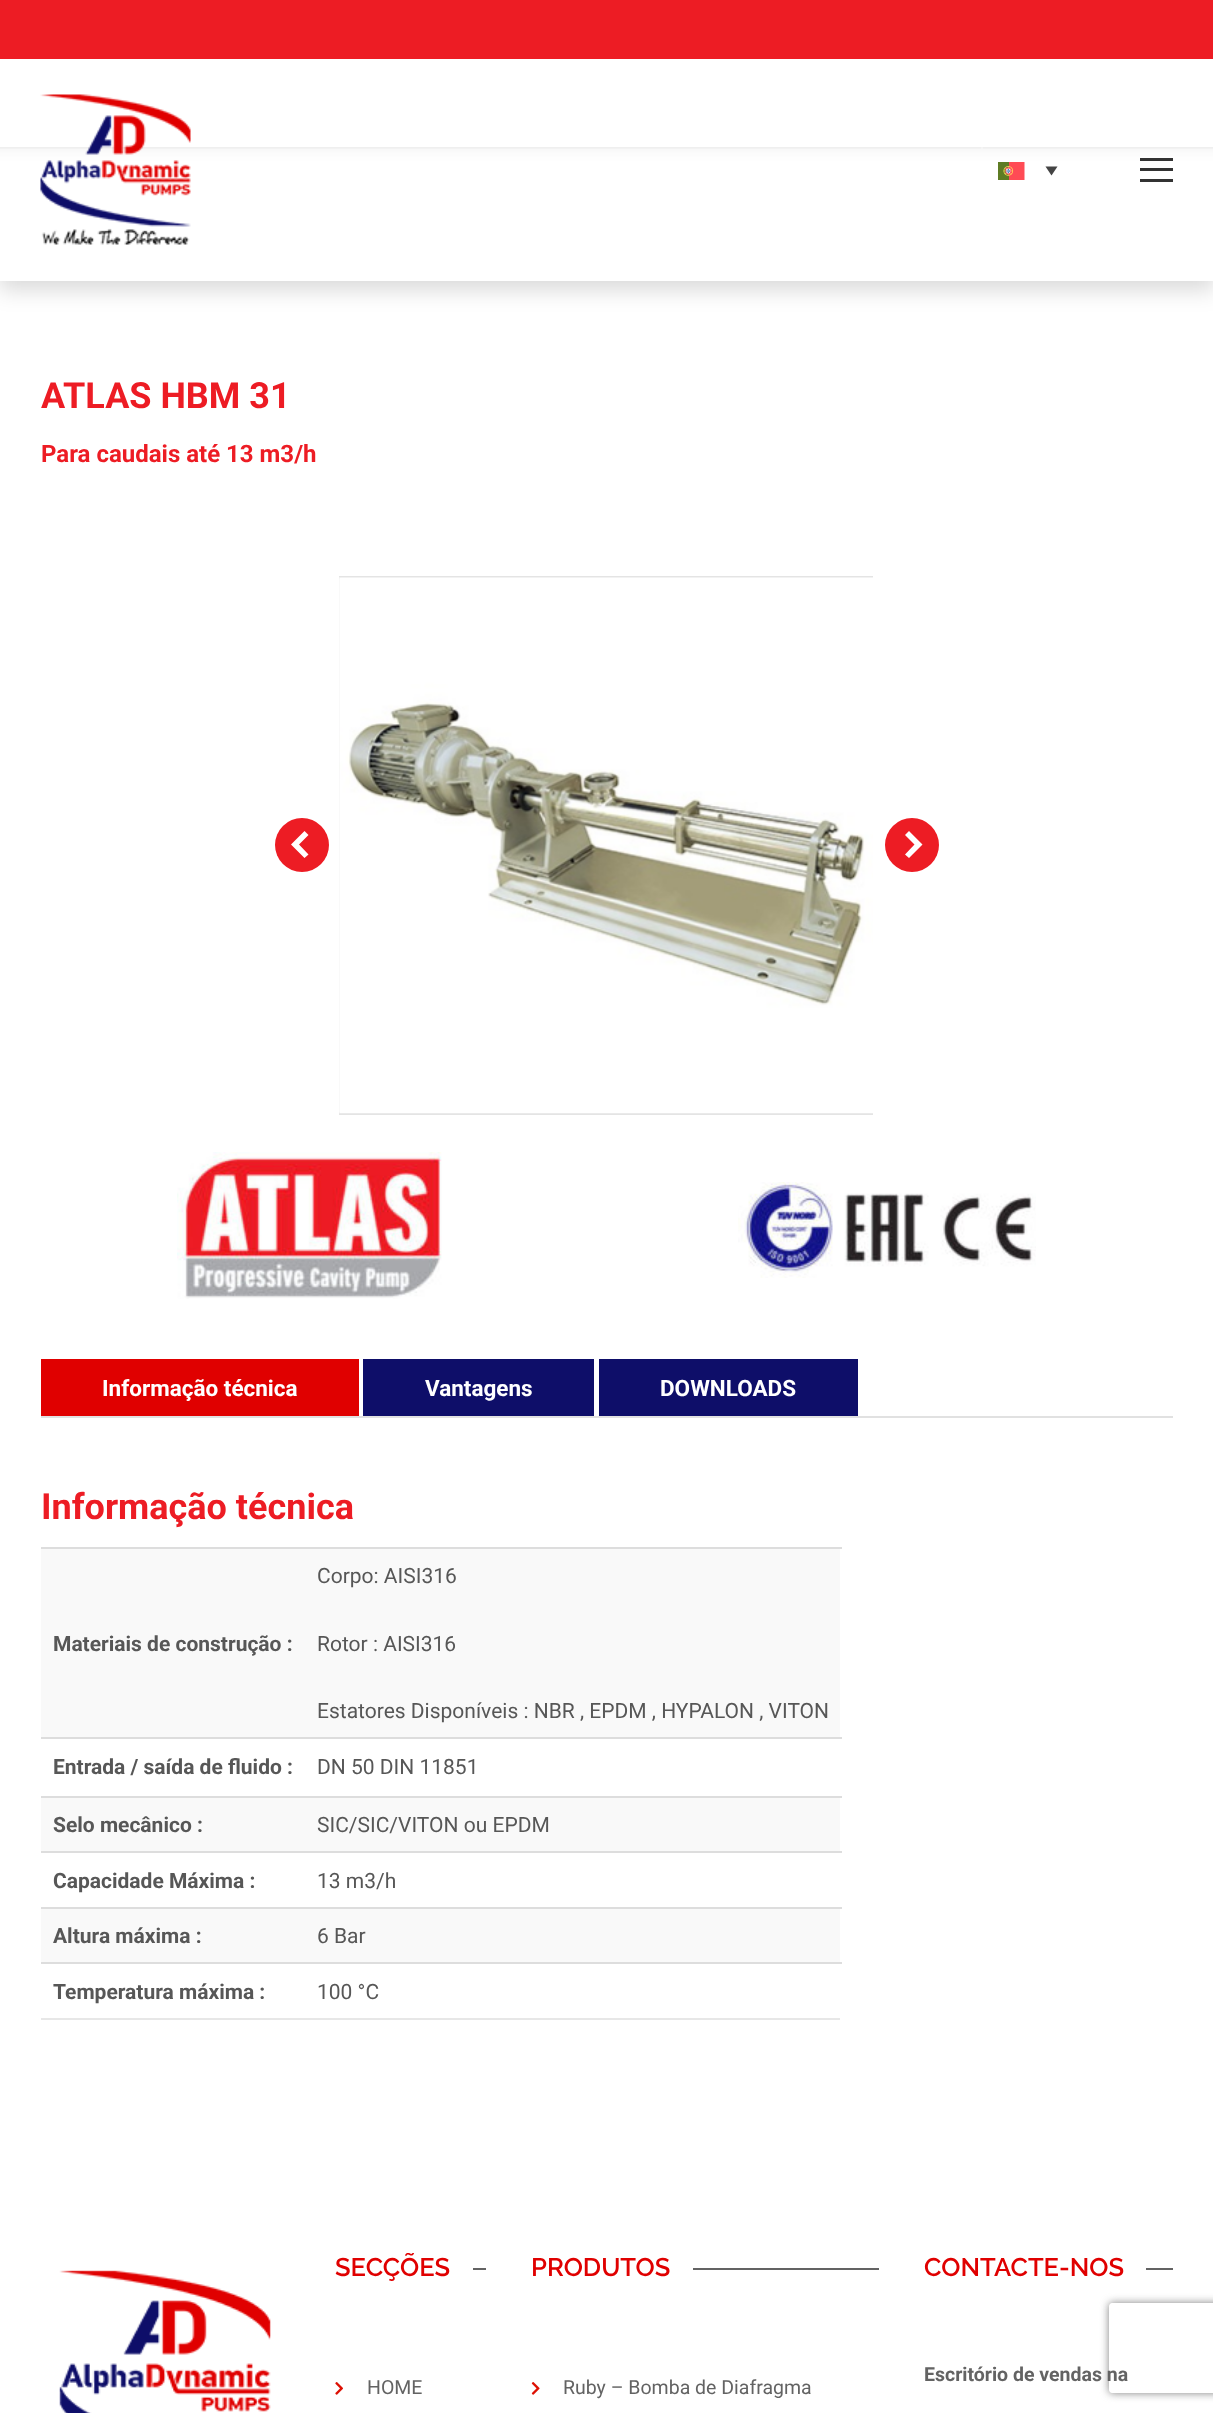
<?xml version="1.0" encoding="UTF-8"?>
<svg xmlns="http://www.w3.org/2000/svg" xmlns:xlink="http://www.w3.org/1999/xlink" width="1213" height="2413">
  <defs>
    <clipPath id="clip1"><path d="M 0 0 h 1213 v 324 h -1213 z m 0 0 h 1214 v 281 h -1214 z" clip-rule="evenodd" /></clipPath>
    <clipPath id="clip2"><rect x="339" y="576" width="534" height="539" /></clipPath>
    <clipPath id="clip3"><path d="M 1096 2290 h 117 v 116 h -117 z m 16 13 h 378 c 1.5 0 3 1.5 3 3 v 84 c 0 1.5 -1.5 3 -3 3 h -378 c -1.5 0 -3 -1.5 -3 -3 v -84 c 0 -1.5 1.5 -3 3 -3 z" clip-rule="evenodd" /></clipPath>
    <clipPath id="clip4"><rect x="335" y="2253" width="151" height="29" /></clipPath>
  </defs>
  <rect width="100%" height="100%" fill="#ffffff" />
  <g clip-path="url(#clip1)">
    <rect x="-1" y="6" width="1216" height="284" fill="#000000" fill-opacity="0.15" filter="blur(11px)" />
  </g>
  <image x="0" y="147" width="1213" height="134" xlink:href="image1.png" />
  <rect width="1213" height="59" fill="#ed1c24" />
  <image x="40" y="94" width="151" height="151" xlink:href="image2.png" />
  <rect x="981" y="141" width="2" height="8" fill="#ffffff" fill-opacity="0.3" />
  <image x="998" y="162" width="27" height="18" xlink:href="image3.png" />
  <path d="M 1045.5 166.5 h 12 l -6 9 z" fill="#444444" />
  <rect x="1140" y="168" width="33" height="3" fill="#333333" />
  <rect x="1140" y="158" width="33" height="3" fill="#333333" />
  <rect x="1140" y="179" width="33" height="3" fill="#333333" />
  <g clip-path="url(#clip2)">
    <rect x="339" y="577" width="536" height="537" fill="none" stroke="#e4e4e4" stroke-width="2" />
  </g>
  <image x="339" y="577" width="534" height="537" xlink:href="image4.png" />
  <circle cx="302" cy="845" r="27" fill="#ed1c24" />
  <path d="M 308.5 854.5 l -9.5 -10 l 9.5 -9.5 l -4 -4 l -13.5 13.5 l 13.5 13.5 z" fill="#ffffff" />
  <circle cx="912" cy="845" r="27" fill="#ed1c24" />
  <path d="M 909 858 l 13.5 -13.5 l -13.5 -13.5 l -4 4 l 9.5 9.5 l -9.5 10 z" fill="#ffffff" />
  <image x="177" y="1152" width="265" height="147" xlink:href="image5.png" />
  <image x="738" y="1182" width="298" height="96" xlink:href="image6.png" />
  <rect x="41" y="1416" width="1132" height="2" fill="#e1e1e1" />
  <rect x="41" y="1359" width="318" height="57" fill="#e00000" />
  <rect x="363" y="1359" width="231" height="57" fill="#0e0e69" />
  <rect x="599" y="1359" width="259" height="57" fill="#0e0e69" />
  <rect x="41" y="2018" width="799" height="2" fill="#e7e7e7" />
  <rect x="41" y="1549" width="799" height="188" fill="#f9f9f9" />
  <rect x="41" y="1547" width="801" height="2" fill="#dddddd" />
  <rect x="41" y="1737" width="801" height="2" fill="#dddddd" />
  <rect x="41" y="1798" width="799" height="53" fill="#f9f9f9" />
  <rect x="41" y="1796" width="801" height="2" fill="#dddddd" />
  <rect x="41" y="1851" width="801" height="2" fill="#dddddd" />
  <rect x="41" y="1909" width="799" height="53" fill="#f9f9f9" />
  <rect x="41" y="1907" width="801" height="2" fill="#dddddd" />
  <rect x="41" y="1962" width="801" height="2" fill="#dddddd" />
  <image x="59" y="2270" width="212" height="143" xlink:href="image7.png" />
  <rect x="473" y="2268" width="13" height="2" fill="#636363" />
  <image x="335" y="2382" width="8" height="13" xlink:href="image8.png" />
  <rect x="693" y="2268" width="186" height="2" fill="#636363" />
  <image x="531" y="2382" width="9" height="13" xlink:href="image9.png" />
  <rect x="1146" y="2268" width="27" height="2" fill="#636363" />
  <g clip-path="url(#clip3)">
    <rect x="1109" y="2303" width="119" height="90" rx="3" fill="#808080" filter="blur(4px)" />
  </g>
  <text x="41" y="408" style="font-family: Roboto; font-size: 36px; font-weight: bold; fill: #ed1c24">ATLAS HBM 31</text>
  <text x="41" y="462" style="font-family: Roboto; font-size: 24px; font-weight: bold; fill: #ed1c24">Para caudais até 13 m3/h</text>
  <text x="102" y="1396" style="font-family: Roboto; font-size: 22.5px; font-weight: bold; fill: #ffffff">Informação técnica</text>
  <text x="425" y="1396" style="font-family: Roboto; font-size: 22.5px; font-weight: bold; fill: #ffffff">Vantagens</text>
  <text x="660" y="1396" style="font-family: Roboto; font-size: 22.5px; font-weight: bold; fill: #ffffff">DOWNLOADS</text>
  <text x="41" y="1519" style="font-family: Roboto; font-size: 36px; font-weight: bold; fill: #ed1c24">Informação técnica</text>
  <text x="53" y="1651" style="font-family: Roboto; font-size: 21px; font-weight: bold; fill: #575757">Materiais de construção :</text>
  <text x="317" y="1583" style="font-family: Roboto; font-size: 21px; fill: #575757">Corpo: AISI316</text>
  <text x="317" y="1651" style="font-family: Roboto; font-size: 21px; fill: #575757">Rotor : AISI316</text>
  <text x="317" y="1718" style="font-family: Roboto; font-size: 21px; fill: #575757">Estatores Disponíveis : NBR , EPDM , HYPALON , VITON</text>
  <text x="53" y="1774" style="font-family: Roboto; font-size: 21px; font-weight: bold; fill: #575757">Entrada / saída de fluido :</text>
  <text x="317" y="1774" style="font-family: Roboto; font-size: 21px; fill: #575757">DN 50 DIN 11851</text>
  <text x="53" y="1832" style="font-family: Roboto; font-size: 21px; font-weight: bold; fill: #575757">Selo mecânico :</text>
  <text x="317" y="1832" style="font-family: Roboto; font-size: 21px; fill: #575757">SIC/SIC/VITON ou EPDM</text>
  <text x="53" y="1888" style="font-family: Roboto; font-size: 21px; font-weight: bold; fill: #575757">Capacidade Máxima :</text>
  <text x="317" y="1888" style="font-family: Roboto; font-size: 21px; fill: #575757">13 m3/h</text>
  <text x="53" y="1943" style="font-family: Roboto; font-size: 21px; font-weight: bold; fill: #575757">Altura máxima :</text>
  <text x="317" y="1943" style="font-family: Roboto; font-size: 21px; fill: #575757">6 Bar</text>
  <text x="53" y="1999" style="font-family: Roboto; font-size: 21px; font-weight: bold; fill: #575757">Temperatura máxima :</text>
  <text x="317" y="1999" style="font-family: Roboto; font-size: 21px; fill: #575757">100 °C</text>
  <g clip-path="url(#clip4)">
    <text x="335" y="2276" style="font-family: Raleway; font-size: 25.5px; font-weight: 600; fill: #e00000">SECÇÕES</text>
  </g>
  <text x="367" y="2394" style="font-family: Roboto; font-size: 19.5px; fill: #636363">HOME</text>
  <text x="531" y="2276" style="font-family: Raleway; font-size: 25.5px; font-weight: 600; fill: #e00000">PRODUTOS</text>
  <text x="563" y="2394" style="font-family: Roboto; font-size: 19.5px; fill: #636363">Ruby – Bomba de Diafragma</text>
  <text x="924" y="2276" style="font-family: Raleway; font-size: 25.5px; font-weight: 600; fill: #e00000">CONTACTE-NOS</text>
  <text x="924" y="2381" style="font-family: Roboto; font-size: 19.5px; font-weight: bold; fill: #636363">Escritório de vendas na</text>
</svg>
